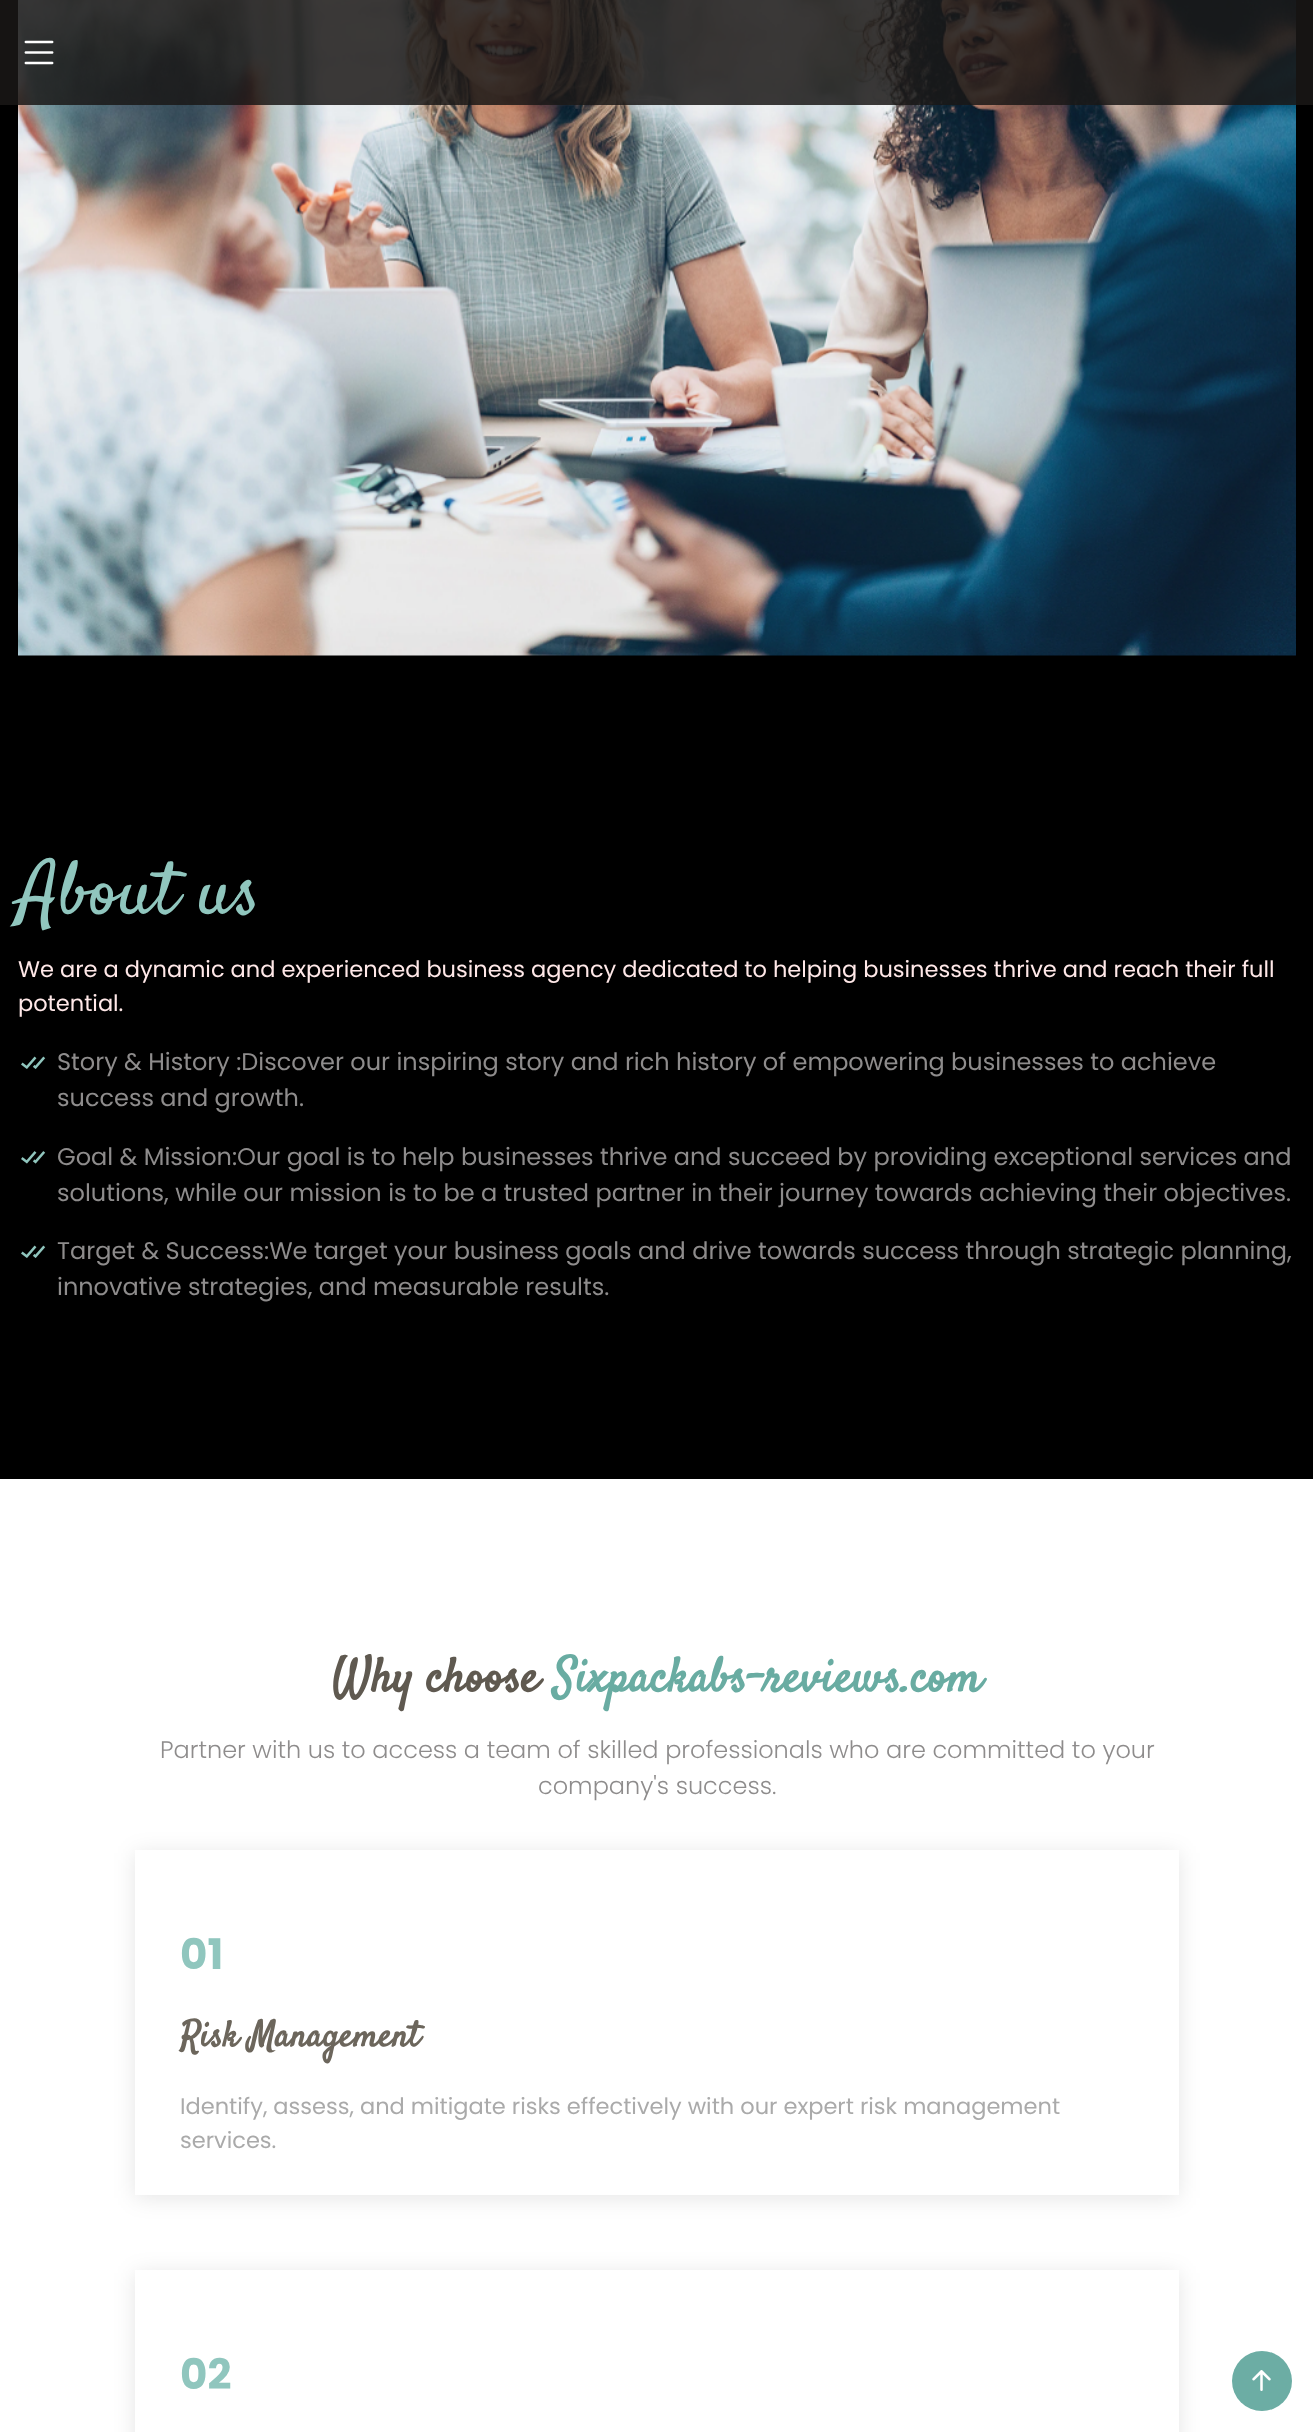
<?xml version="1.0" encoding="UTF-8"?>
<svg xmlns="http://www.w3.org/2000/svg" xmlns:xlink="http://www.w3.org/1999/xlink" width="1313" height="2432">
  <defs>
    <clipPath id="clip1"><path d="M 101 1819 h 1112 v 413 h -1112 z m 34 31 h 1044 v 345 h -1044 z" clip-rule="evenodd" /></clipPath>
    <clipPath id="clip2"><path d="M 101 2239 h 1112 v 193 h -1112 z m 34 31 h 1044 v 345 h -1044 z" clip-rule="evenodd" /></clipPath>
  </defs>
  <rect width="100%" height="100%" fill="#ffffff" />
  <rect width="1313" height="1479" fill="#000000" />
  <image x="18" y="0" width="1278" height="656" xlink:href="image2.png" />
  <rect width="1313" height="105" fill="#1a1816" fill-opacity="0.85" />
  <image x="24" y="40" width="30" height="25" xlink:href="image1.png" />
  <image x="21" y="1056" width="25" height="13" xlink:href="image3.png" />
  <image x="21" y="1151" width="25" height="13" xlink:href="image4.png" />
  <image x="21" y="1245" width="25" height="13" xlink:href="image3.png" />
  <g clip-path="url(#clip1)">
    <rect x="135" y="1853" width="1044" height="345" fill="#000000" fill-opacity="0.1" filter="blur(11px)" />
  </g>
  <g clip-path="url(#clip2)">
    <rect x="135" y="2273" width="1044" height="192" fill="#000000" fill-opacity="0.1" filter="blur(11px)" />
  </g>
  <circle cx="1262" cy="2381" r="30" fill="#6cada4" />
  <image x="1252" y="2370" width="19" height="21" xlink:href="image5.png" />
  <text x="18" y="913" style="font-family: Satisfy; font-size: 75px; fill: #90c6be">About us</text>
  <text x="18" y="977" style="font-family: Poppins; font-size: 22.5px; fill: #ffe8e8">We are a dynamic and experienced business agency dedicated to helping businesses thrive and reach their full</text>
  <text x="18" y="1011" style="font-family: Poppins; font-size: 22.5px; fill: #ffe8e8">potential.</text>
  <text x="57" y="1070" style="font-family: Poppins; font-size: 24px; fill: #8e8c8c">Story &amp; History :Discover our inspiring story and rich history of empowering businesses to achieve</text>
  <text x="57" y="1106" style="font-family: Poppins; font-size: 24px; fill: #8e8c8c">success and growth.</text>
  <text x="57" y="1165" style="font-family: Poppins; font-size: 24px; fill: #8e8c8c">Goal &amp; Mission:Our goal is to help businesses thrive and succeed by providing exceptional services and</text>
  <text x="57" y="1201" style="font-family: Poppins; font-size: 24px; fill: #8e8c8c">solutions, while our mission is to be a trusted partner in their journey towards achieving their objectives.</text>
  <text x="57" y="1259" style="font-family: Poppins; font-size: 24px; fill: #8e8c8c">Target &amp; Success:We target your business goals and drive towards success through strategic planning,</text>
  <text x="57" y="1295" style="font-family: Poppins; font-size: 24px; fill: #8e8c8c">innovative strategies, and measurable results.</text>
  <text x="332" y="1691" style="font-family: Satisfy; font-size: 48px; font-weight: bold; fill: #5f5950">Why choose</text>
  <text x="553" y="1691" style="font-family: Satisfy; font-size: 48px; font-weight: bold; fill: #69aca2">Sixpackabs-reviews.com</text>
  <text x="160" y="1758" style="font-family: Poppins; font-size: 24px; font-weight: 300; fill: #8e8c8c">Partner with us to access a team of skilled professionals who are committed to your</text>
  <text x="538" y="1794" style="font-family: Poppins; font-size: 24px; font-weight: 300; fill: #8e8c8c">company's success.</text>
  <text x="180" y="1969" style="font-family: Poppins; font-size: 42px; font-weight: bold; fill: #90c6be">01</text>
  <text x="180" y="2046" style="font-family: Satisfy; font-size: 36px; font-weight: bold; fill: #6c665c">Risk Management</text>
  <text x="180" y="2114" style="font-family: Poppins; font-size: 22.5px; fill: #aaaaaa">Identify, assess, and mitigate risks effectively with our expert risk management</text>
  <text x="180" y="2148" style="font-family: Poppins; font-size: 22.5px; fill: #aaaaaa">services.</text>
  <text x="180" y="2389" style="font-family: Poppins; font-size: 42px; font-weight: bold; fill: #90c6be">02</text>
</svg>
